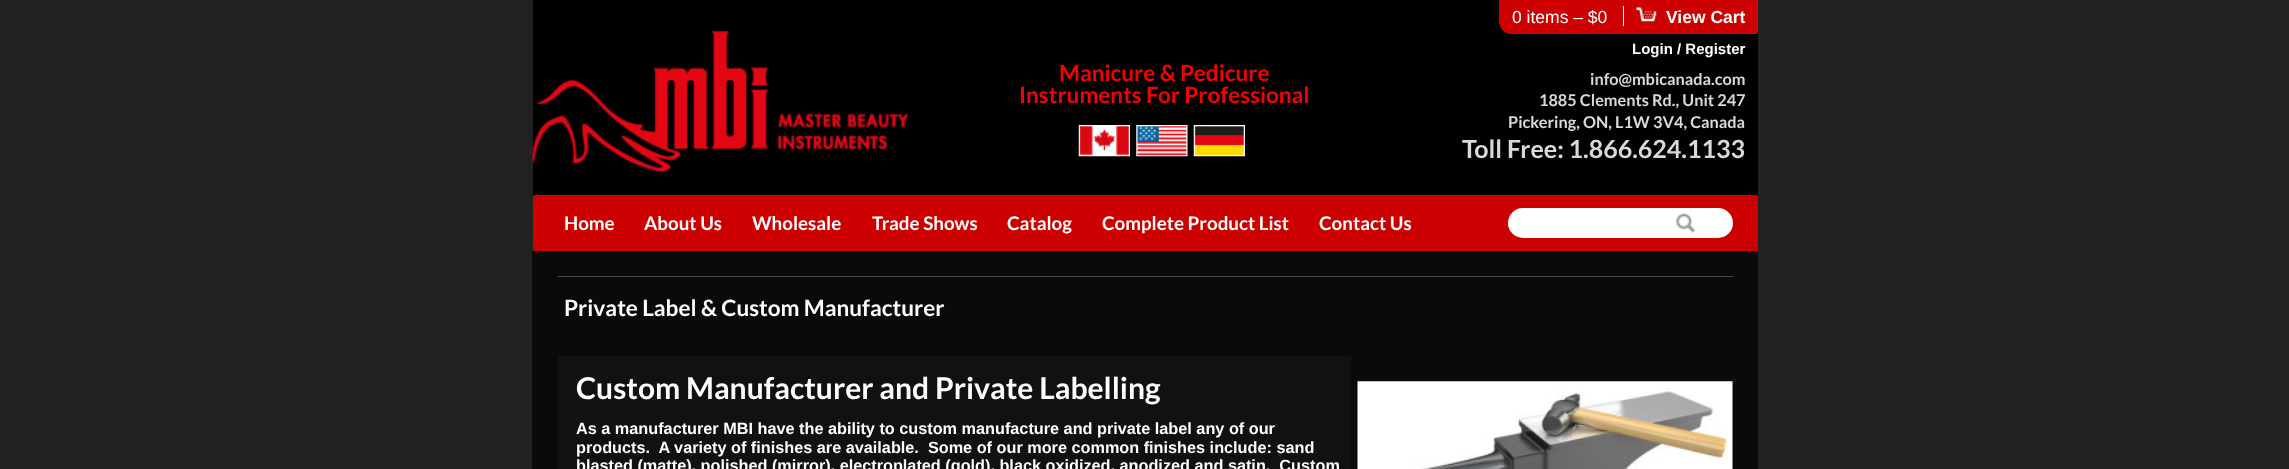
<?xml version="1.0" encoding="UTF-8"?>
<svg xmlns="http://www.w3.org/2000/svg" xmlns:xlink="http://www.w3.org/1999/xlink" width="2289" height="469">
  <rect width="100%" height="100%" fill="#222222" />
  <rect x="533" y="195" width="1225" height="3" fill="#1b1b1b" />
  <rect x="533" width="1225" height="195" fill="#000000" />
  <path d="M 1499 0 h 259 v 31.5 c 0 1.5 -1 2.5 -2.5 2.5 h -243.5 c -7 0 -13 -6 -13 -13 z" fill="#ff0000" />
  <image x="1499" y="0" width="259" height="34" xlink:href="image1.png" />
  <rect x="1623" y="6" width="1" height="20" fill="#ffffff" />
  <image x="1636" y="7" width="21" height="15" xlink:href="image2.png" />
  <image x="532" y="31" width="376" height="141" xlink:href="image3.png" />
  <image x="1078" y="125" width="52" height="32" xlink:href="image4.png" />
  <image x="1136" y="125" width="52" height="32" xlink:href="image5.png" />
  <image x="1193" y="125" width="52" height="32" xlink:href="image6.png" />
  <path d="M 535.5 195 h 1220 c 1.5 0 2.5 1 2.5 2.5 v 53.5 h -1225 v -53.5 c 0 -1.5 1 -2.5 2.5 -2.5 z" fill="#cc0000" />
  <rect x="1508" y="208" width="225" height="30" rx="15" fill="#ffffff" />
  <image x="1676" y="213" width="19" height="20" xlink:href="image7.png" />
  <rect x="532" y="251" width="1226" height="218" fill="#0a0a0a" />
  <rect x="558" y="276" width="1175" height="1" fill="#4d4d4d" />
  <rect x="558" y="356" width="793" height="113" fill="#111111" />
  <image x="1357" y="381" width="376" height="88" xlink:href="image8.png" />
  <text x="1512" y="23" style="font-family: Liberation Sans; font-size: 17.5px; fill: #ffffff">0 items – $0</text>
  <text x="1666" y="23" style="font-family: Liberation Sans; font-size: 17.5px; font-weight: bold; fill: #ffffff">View Cart</text>
  <text x="1632" y="54" style="font-family: Liberation Sans; font-size: 15px; font-weight: bold; fill: #ffffff">Login / Register</text>
  <text x="1059" y="81" style="font-family: Lato; font-size: 22.5px; font-weight: bold; fill: #f70000">Manicure &amp; Pedicure</text>
  <text x="1019" y="103" style="font-family: Lato; font-size: 22.5px; font-weight: bold; fill: #f70000">Instruments For Professional</text>
  <text x="1590" y="85" style="font-family: Lato; font-size: 16.25px; font-weight: bold; fill: #d9d9d9">info@mbicanada.com</text>
  <text x="1539" y="106" style="font-family: Lato; font-size: 16.25px; font-weight: bold; fill: #d9d9d9">1885 Clements Rd., Unit 247</text>
  <text x="1508" y="128" style="font-family: Lato; font-size: 16.25px; font-weight: bold; fill: #d9d9d9">Pickering, ON, L1W 3V4, Canada</text>
  <text x="1462" y="158" style="font-family: Lato; font-size: 25px; font-weight: bold; fill: #d9d9d9">Toll Free: 1.866.624.1133</text>
  <text x="564" y="230" style="font-family: Lato; font-size: 18.75px; font-weight: bold; fill: #ffffff">Home</text>
  <text x="644" y="230" style="font-family: Lato; font-size: 18.75px; font-weight: bold; fill: #ffffff">About Us</text>
  <text x="752" y="230" style="font-family: Lato; font-size: 18.75px; font-weight: bold; fill: #ffffff">Wholesale</text>
  <text x="872" y="230" style="font-family: Lato; font-size: 18.75px; font-weight: bold; fill: #ffffff">Trade Shows</text>
  <text x="1007" y="230" style="font-family: Lato; font-size: 18.75px; font-weight: bold; fill: #ffffff">Catalog</text>
  <text x="1102" y="230" style="font-family: Lato; font-size: 18.75px; font-weight: bold; fill: #ffffff">Complete Product List</text>
  <text x="1319" y="230" style="font-family: Lato; font-size: 18.75px; font-weight: bold; fill: #ffffff">Contact Us</text>
  <text x="564" y="316" style="font-family: Lato; font-size: 22.5px; font-weight: bold; fill: #ffffff">Private Label &amp; Custom Manufacturer</text>
  <text x="576" y="399" style="font-family: Lato; font-size: 30px; font-weight: bold; fill: #ffffff">Custom Manufacturer and Private Labelling</text>
  <text x="576" y="434" style="font-family: Liberation Sans; font-size: 16.25px; font-weight: bold; fill: #ffffff">As a manufacturer MBI have the ability to custom manufacture and private label any of our</text>
  <text x="576" y="453" style="font-family: Liberation Sans; font-size: 16.25px; font-weight: bold; fill: #ffffff" xml:space="preserve">products.  A variety of finishes are available.  Some of our more common finishes include: sand</text>
  <text x="576" y="471" style="font-family: Liberation Sans; font-size: 16.25px; font-weight: bold; fill: #ffffff" xml:space="preserve">blasted (matte), polished (mirror), electroplated (gold), black oxidized, anodized and satin.  Custom</text>
</svg>
